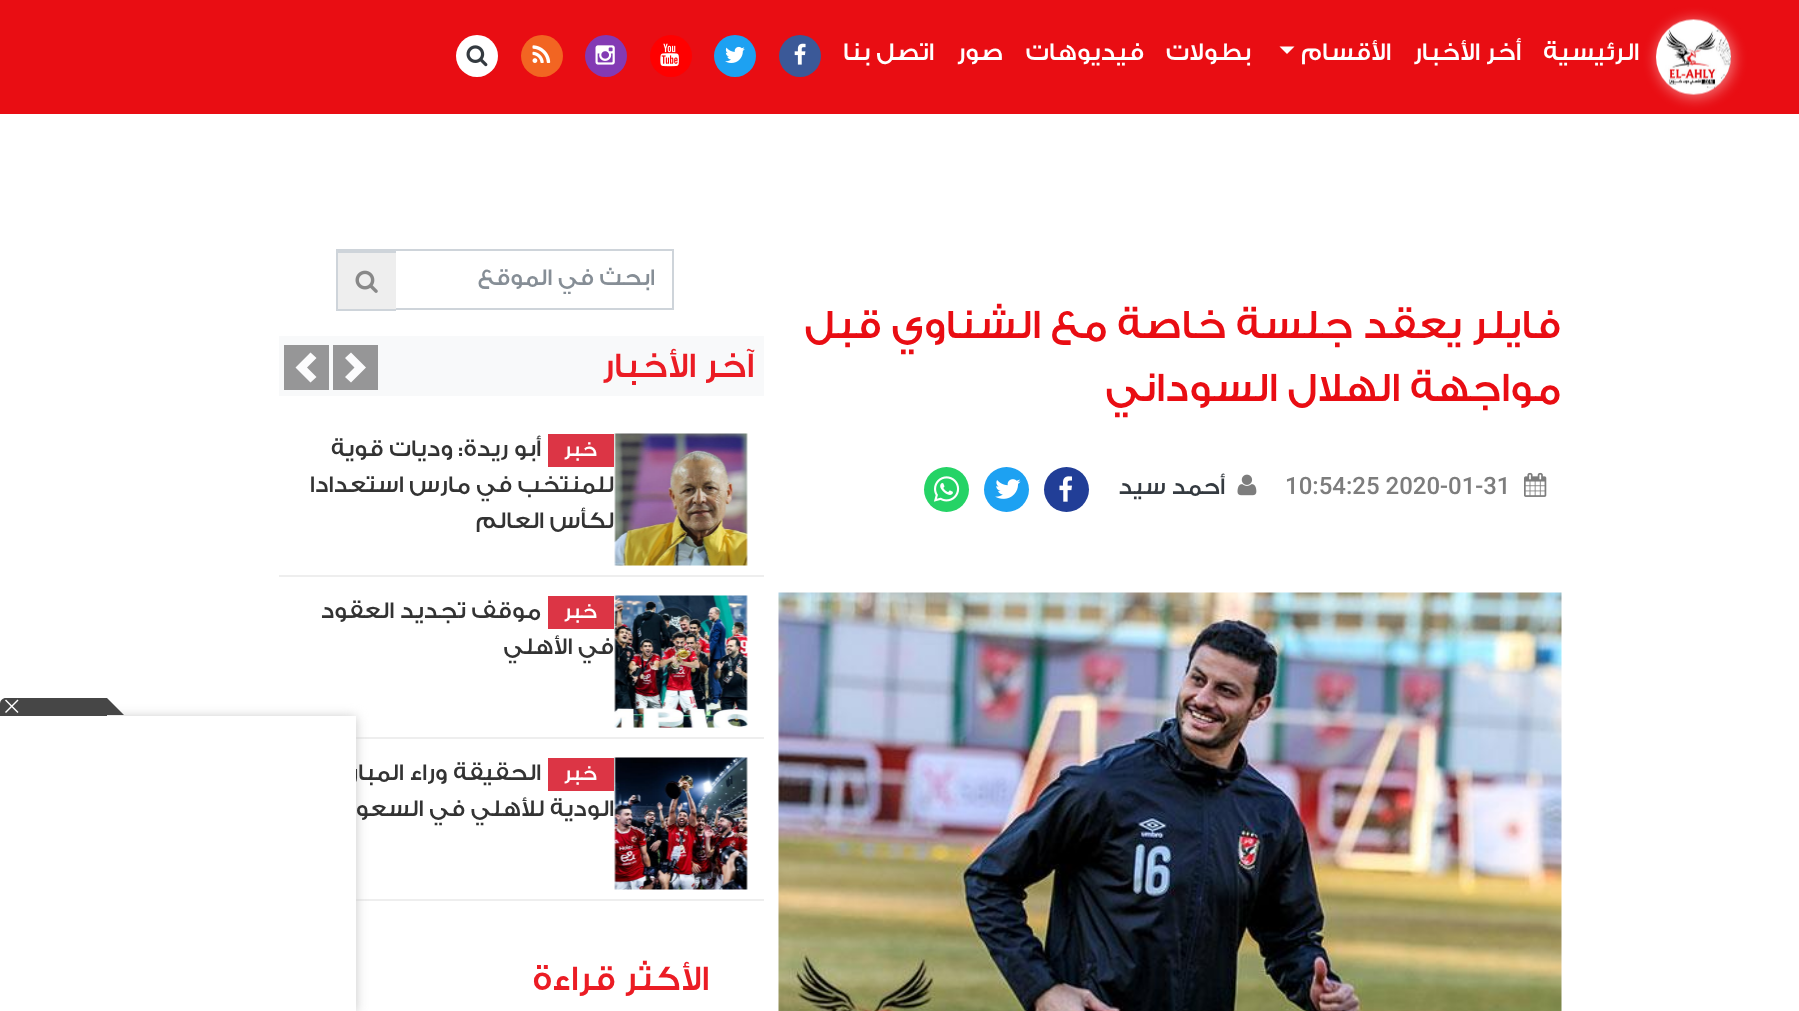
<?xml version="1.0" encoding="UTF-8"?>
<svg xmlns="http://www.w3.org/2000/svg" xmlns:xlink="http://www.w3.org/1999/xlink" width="1799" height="1011">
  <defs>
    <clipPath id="clip1"><rect x="107" y="698" width="18" height="18" /></clipPath>
    <clipPath id="clip2"><rect x="414" y="264" width="240" height="30" /></clipPath>
  </defs>
  <rect width="100%" height="100%" fill="#ffffff" />
  <rect width="1799" height="114" fill="#e90d13" />
  <rect x="1656" y="20" width="78" height="78" rx="39" fill="#fdf8f7" fill-opacity="0.43" filter="blur(7px)" />
  <image x="1656" y="19" width="75" height="76" xlink:href="image1.png" />
  <path d="M 1279.5 46.5 h 15 l -7.5 7.5 z" fill="#ffffff" />
  <circle cx="800" cy="56" r="21" fill="#3b5998" />
  <image x="794" y="43" width="12" height="22" xlink:href="image2.png" />
  <circle cx="735" cy="56" r="21" fill="#1da1f2" />
  <image x="725" y="46" width="20" height="17" xlink:href="image3.png" />
  <circle cx="671" cy="56" r="21" fill="#ff0000" />
  <image x="660" y="43" width="19" height="24" xlink:href="image4.png" />
  <circle cx="606" cy="56" r="21" fill="#833ab4" />
  <image x="595" y="45" width="20" height="20" xlink:href="image5.png" />
  <circle cx="542" cy="56" r="21" fill="#f26522" />
  <image x="532" y="45" width="19" height="18" xlink:href="image6.png" />
  <circle cx="477" cy="56" r="21" fill="#ffffff" />
  <image x="466" y="45" width="22" height="22" xlink:href="image7.png" />
  <image x="1524" y="472" width="23" height="25" xlink:href="image8.png" />
  <image x="1237" y="474" width="20" height="22" xlink:href="image9.png" />
  <circle cx="1066.5" cy="489.5" r="22.5" fill="#213e97" />
  <image x="1059" y="476" width="13" height="26" xlink:href="image10.png" />
  <circle cx="1006.5" cy="489.5" r="22.5" fill="#1da1f2" />
  <image x="995" y="479" width="26" height="20" xlink:href="image11.png" />
  <circle cx="946.5" cy="489.5" r="22.5" fill="#25d366" />
  <image x="933" y="476" width="27" height="26" xlink:href="image12.png" />
  <image x="778" y="592" width="784" height="419" xlink:href="image13.png" />
  <rect x="396" y="249" width="278" height="2" fill="#ced4da" />
  <rect x="672" y="249" width="2" height="60" fill="#ced4da" />
  <rect x="396" y="308" width="278" height="2" fill="#ced4da" />
  <rect x="336" y="249" width="60" height="4" fill="#ced4da" />
  <rect x="338" y="253" width="58" height="56" fill="#eeeeee" />
  <rect x="336" y="309" width="60" height="2" fill="#ced4da" />
  <rect x="336" y="251" width="2" height="60" fill="#ced4da" />
  <image x="355" y="270" width="23" height="23" xlink:href="image14.png" />
  <rect x="279" y="336" width="485" height="60" fill="#f8f9fa" />
  <rect x="333" y="345" width="45" height="45" fill="#969697" />
  <path d="M 351 352.5 l -6 5.5 l 9.5 9.5 l -9.5 9.5 l 6 5.5 l 15 -15 z" fill="#fcfcfd" />
  <rect x="284" y="345" width="45" height="45" fill="#969697" />
  <path d="M 310.5 352.5 l -15 15 l 15 15 l 6 -5.5 l -9.5 -9.5 l 9.5 -9.5 z" fill="#fcfcfd" />
  <rect x="279" y="575" width="485" height="2" fill="#eeeeee" />
  <image x="614" y="433" width="134" height="133" xlink:href="image15.png" />
  <rect x="548" y="434" width="66" height="33" fill="#dc3545" />
  <rect x="356" y="737" width="408" height="2" fill="#eeeeee" />
  <image x="614" y="595" width="134" height="133" xlink:href="image16.png" />
  <rect x="548" y="596" width="66" height="33" fill="#dc3545" />
  <rect x="356" y="899" width="408" height="2" fill="#eeeeee" />
  <image x="614" y="757" width="134" height="133" xlink:href="image17.png" />
  <rect x="548" y="758" width="66" height="33" fill="#dc3545" />
  <rect x="2" y="717" width="354" height="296" fill="#c7c7c7" filter="blur(6px)" />
  <path d="M 6 698 h 101 v 18 h -107 v -12 c 0 -3.5 2.5 -6 6 -6 z" fill="#464646" />
  <g clip-path="url(#clip1)">
    <path d="M 106.5 697.5 l 17.5 17.5 h -17.5 z" fill="#464646" />
  </g>
  <path d="M 6 699.5 l 12.5 12.5 l -1 1 l -12.5 -12.5 z" fill="#ffffff" />
  <path d="M 5 712 l 12.5 -12.5 l 1 1 l -12.5 12.5 z" fill="#ffffff" />
  <text x="1639" y="60" style="font-family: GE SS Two; font-size: 25.5px; font-weight: 500; direction: rtl; fill: #ffffff">الرئيسية</text>
  <text x="1521" y="60" style="font-family: GE SS Two; font-size: 25.5px; font-weight: 500; direction: rtl; fill: #ffffff">أخر الأخبار</text>
  <text x="1391" y="60" style="font-family: GE SS Two; font-size: 25.5px; font-weight: 500; direction: rtl; fill: #ffffff">الأقسام</text>
  <text x="1251" y="60" style="font-family: GE SS Two; font-size: 25.5px; font-weight: 500; direction: rtl; fill: #ffffff">بطولات</text>
  <text x="1144" y="60" style="font-family: GE SS Two; font-size: 25.5px; font-weight: 500; direction: rtl; fill: #ffffff">فيديوهات</text>
  <text x="1003" y="60" style="font-family: GE SS Two; font-size: 25.5px; font-weight: 500; direction: rtl; fill: #ffffff">صور</text>
  <text x="934" y="60" style="font-family: GE SS Two; font-size: 25.5px; font-weight: 500; direction: rtl; fill: #ffffff">اتصل بنا</text>
  <text x="1561" y="338" style="font-family: GE SS Two; font-size: 42px; font-weight: 500; direction: rtl; fill: #e90d13">فايلر يعقد جلسة خاصة مع الشناوي قبل</text>
  <text x="1561" y="401" style="font-family: GE SS Two; font-size: 42px; font-weight: 500; direction: rtl; fill: #e90d13">مواجهة الهلال السوداني</text>
  <text x="1285" y="494" style="font-family: Roboto; font-size: 24px; font-weight: 500; fill: #7d7d7d">10:54:25 2020-01-31</text>
  <text x="1225" y="494" style="font-family: GE SS Two; font-size: 24px; font-weight: 500; direction: rtl; fill: #343a40">أحمد سيد</text>
  <g clip-path="url(#clip2)">
    <text x="655" y="285" style="font-family: GE SS Two; font-size: 24px; font-weight: 500; direction: rtl; fill: #868e96">ابحث في الموقع</text>
  </g>
  <text x="754" y="377" style="font-family: GE SS Two; font-size: 36px; font-weight: 500; direction: rtl; fill: #eb1c24">آخر الأخبار</text>
  <text x="597" y="456" style="font-family: GE SS Two; font-size: 21px; font-weight: 500; direction: rtl; fill: #ffffff">خبر</text>
  <text x="541" y="456" style="font-family: GE SS Two; font-size: 24px; font-weight: 500; direction: rtl; fill: #333333">أبو ريدة: وديات قوية</text>
  <text x="614" y="492" style="font-family: GE SS Two; font-size: 24px; font-weight: 500; direction: rtl; fill: #333333">للمنتخب في مارس استعدادا</text>
  <text x="614" y="528" style="font-family: GE SS Two; font-size: 24px; font-weight: 500; direction: rtl; fill: #333333">لكأس العالم</text>
  <text x="597" y="618" style="font-family: GE SS Two; font-size: 21px; font-weight: 500; direction: rtl; fill: #ffffff">خبر</text>
  <text x="541" y="618" style="font-family: GE SS Two; font-size: 24px; font-weight: 500; direction: rtl; fill: #333333">موقف تجديد العقود</text>
  <text x="614" y="654" style="font-family: GE SS Two; font-size: 24px; font-weight: 500; direction: rtl; fill: #333333">في الأهلي</text>
  <text x="597" y="780" style="font-family: GE SS Two; font-size: 21px; font-weight: 500; direction: rtl; fill: #ffffff">خبر</text>
  <text x="541" y="780" style="font-family: GE SS Two; font-size: 24px; font-weight: 500; direction: rtl; fill: #333333">الحقيقة وراء المباراة</text>
  <text x="614" y="816" style="font-family: GE SS Two; font-size: 24px; font-weight: 500; direction: rtl; fill: #333333">الودية للأهلي في السعودية</text>
  <text x="709" y="990" style="font-family: GE SS Two; font-size: 36px; font-weight: 500; direction: rtl; fill: #eb1c24">الأكثر قراءة</text>
  <rect y="716" width="356" height="295" fill="#ffffff" />
</svg>
